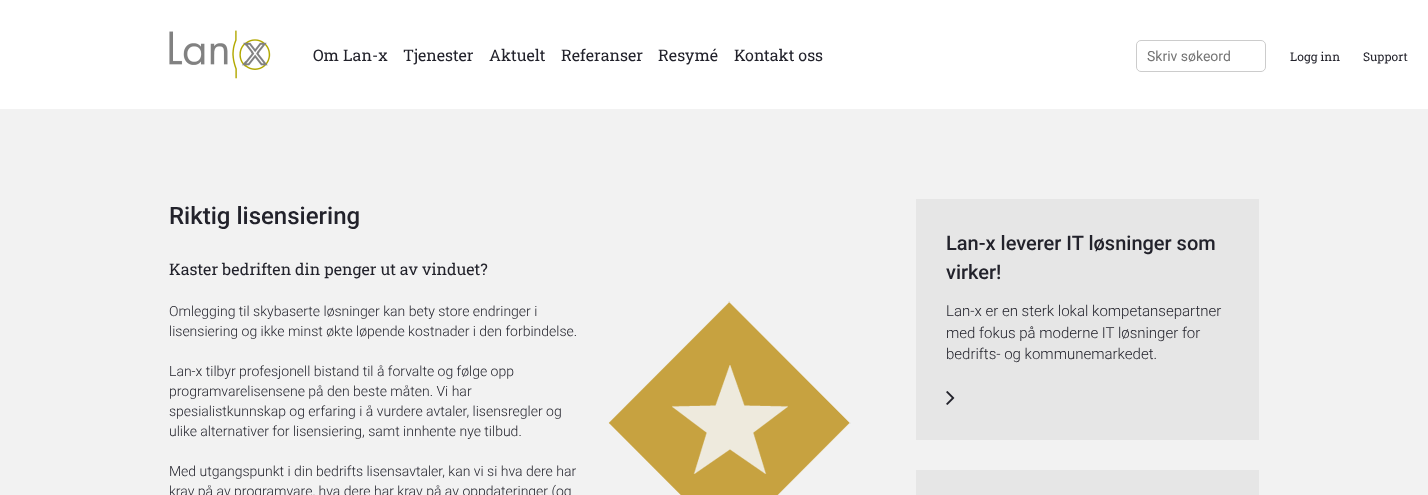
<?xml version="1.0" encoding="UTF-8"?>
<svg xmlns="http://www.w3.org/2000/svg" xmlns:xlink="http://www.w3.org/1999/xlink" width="1428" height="495">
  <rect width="100%" height="100%" fill="#f2f2f2" />
  <rect width="1428" height="109" fill="#ffffff" />
  <image x="169" y="30" width="102" height="49" xlink:href="image1.png" />
  <rect x="1136.5" y="40.5" width="129" height="31" rx="4.5" fill="none" stroke="#cccccc" />
  <image x="608" y="301" width="243" height="194" xlink:href="image2.png" />
  <rect x="916" y="199" width="343" height="241" fill="#e6e6e6" />
  <image x="946" y="391" width="9" height="14" xlink:href="image3.png" />
  <rect x="916" y="470" width="343" height="25" fill="#e6e6e6" />
  <text x="313" y="61" style="font-family: Roboto Slab; font-size: 16px; fill: #22222b">Om Lan-x</text>
  <text x="403" y="61" style="font-family: Roboto Slab; font-size: 16px; fill: #22222b">Tjenester</text>
  <text x="489" y="61" style="font-family: Roboto Slab; font-size: 16px; fill: #22222b">Aktuelt</text>
  <text x="561" y="61" style="font-family: Roboto Slab; font-size: 16px; fill: #22222b">Referanser</text>
  <text x="658" y="61" style="font-family: Roboto Slab; font-size: 16px; fill: #22222b">Resymé</text>
  <text x="734" y="61" style="font-family: Roboto Slab; font-size: 16px; fill: #22222b">Kontakt oss</text>
  <text x="1147" y="61" style="font-family: Roboto; font-size: 14px; fill: #757575">Skriv søkeord</text>
  <text x="1290" y="61" style="font-family: Roboto Slab; font-size: 12px; fill: #22222b">Logg inn</text>
  <text x="1363" y="61" style="font-family: Roboto Slab; font-size: 12px; fill: #22222b">Support</text>
  <text x="169" y="224" style="font-family: Roboto; font-size: 24px; font-weight: 500; fill: #22222b">Riktig lisensiering</text>
  <text x="169" y="275" style="font-family: Roboto Slab; font-size: 16px; fill: #22222b">Kaster bedriften din penger ut av vinduet?</text>
  <text x="169" y="316" style="font-family: Roboto; font-size: 14px; font-weight: 300; fill: #22222b">Omlegging til skybaserte løsninger kan bety store endringer i</text>
  <text x="169" y="336" style="font-family: Roboto; font-size: 14px; font-weight: 300; fill: #22222b">lisensiering og ikke minst økte løpende kostnader i den forbindelse.</text>
  <text x="169" y="376" style="font-family: Roboto; font-size: 14px; font-weight: 300; fill: #22222b">Lan-x tilbyr profesjonell bistand til å forvalte og følge opp</text>
  <text x="169" y="396" style="font-family: Roboto; font-size: 14px; font-weight: 300; fill: #22222b">programvarelisensene på den beste måten. Vi har</text>
  <text x="169" y="416" style="font-family: Roboto; font-size: 14px; font-weight: 300; fill: #22222b">spesialistkunnskap og erfaring i å vurdere avtaler, lisensregler og</text>
  <text x="169" y="436" style="font-family: Roboto; font-size: 14px; font-weight: 300; fill: #22222b">ulike alternativer for lisensiering, samt innhente nye tilbud.</text>
  <text x="169" y="476" style="font-family: Roboto; font-size: 14px; font-weight: 300; fill: #22222b">Med utgangspunkt i din bedrifts lisensavtaler, kan vi si hva dere har</text>
  <text x="169" y="496" style="font-family: Roboto; font-size: 14px; font-weight: 300; fill: #22222b">krav på av programvare, hva dere har krav på av oppdateringer (og</text>
  <text x="946" y="250" style="font-family: Roboto; font-size: 20px; font-weight: 500; fill: #22222b">Lan-x leverer IT løsninger som</text>
  <text x="946" y="279" style="font-family: Roboto; font-size: 20px; font-weight: 500; fill: #22222b">virker!</text>
  <text x="946" y="316" style="font-family: Roboto; font-size: 15px; font-weight: 300; fill: #22222b">Lan-x er en sterk lokal kompetansepartner</text>
  <text x="946" y="338" style="font-family: Roboto; font-size: 15px; font-weight: 300; fill: #22222b">med fokus på moderne IT løsninger for</text>
  <text x="946" y="359" style="font-family: Roboto; font-size: 15px; font-weight: 300; fill: #22222b">bedrifts- og kommunemarkedet.</text>
</svg>
